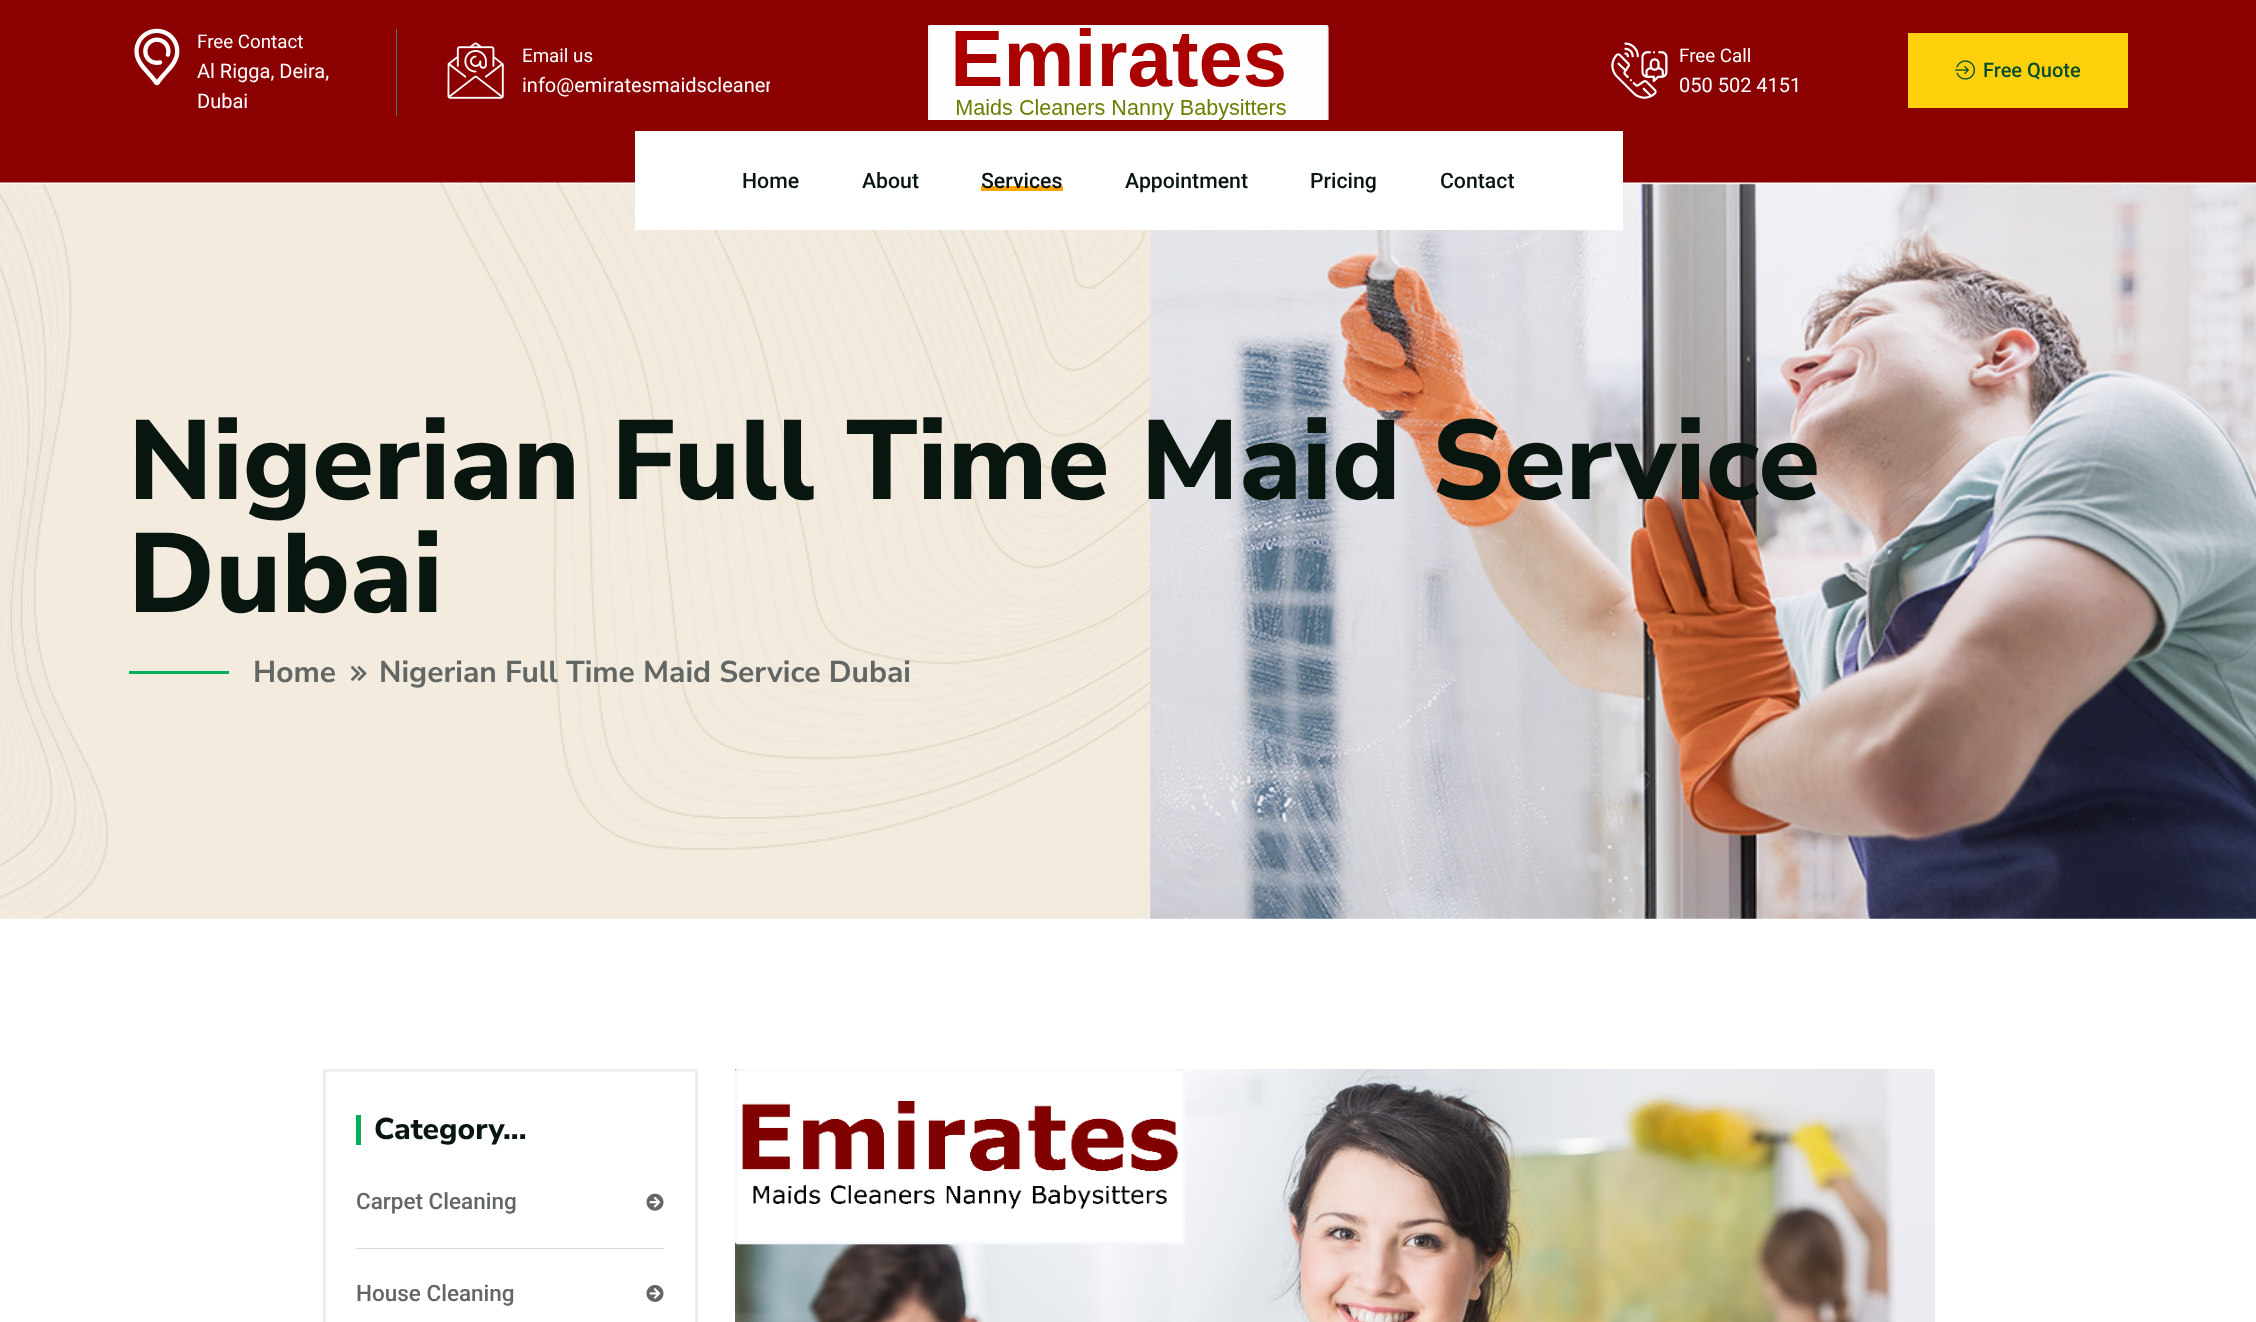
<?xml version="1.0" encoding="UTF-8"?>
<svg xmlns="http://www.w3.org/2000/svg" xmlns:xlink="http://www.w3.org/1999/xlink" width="2256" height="1322">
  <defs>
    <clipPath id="clip1"><rect x="523" y="43" width="247" height="57" /></clipPath>
  </defs>
  <rect width="100%" height="100%" fill="#ffffff" />
  <rect width="2256" height="183" fill="#8b0000" />
  <rect x="396" y="29" width="1" height="87" fill="#417e60" />
  <image x="134" y="28" width="46" height="57" xlink:href="image1.png" />
  <image x="447" y="42" width="57" height="57" xlink:href="image2.png" />
  <image x="928" y="25" width="401" height="95" xlink:href="image3.png" />
  <image x="1611" y="42" width="57" height="57" xlink:href="image4.png" />
  <rect x="1908" y="33" width="220" height="75" fill="#fed10c" />
  <image x="1955" y="60" width="20" height="20" xlink:href="image5.png" />
  <image x="0" y="182" width="2256" height="737" xlink:href="image6.png" />
  <rect x="635" y="131" width="988" height="99" fill="#ffffff" />
  <rect x="981" y="186" width="82" height="5" fill="#ffa500" />
  <rect x="129" y="671" width="100" height="3" fill="#06ae5a" />
  <image x="351" y="666" width="16" height="15" xlink:href="image7.png" />
  <rect x="324.5" y="1070.5" width="372" height="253" fill="none" stroke="#eceff0" stroke-width="3" />
  <rect x="356" y="1115" width="5" height="30" fill="#06ae5a" />
  <rect x="356" y="1248" width="308" height="1" fill="#dadddf" />
  <image x="646" y="1193" width="18" height="18" xlink:href="image8.png" />
  <image x="646" y="1285" width="18" height="17" xlink:href="image9.png" />
  <image x="735" y="1069" width="1200" height="253" xlink:href="image10.png" />
  <text x="197" y="48" style="font-family: Roboto; font-size: 18.75px; fill: #ffffff">Free Contact</text>
  <text x="197" y="78" style="font-family: Roboto; font-size: 20px; fill: #ffffff">Al Rigga, Deira,</text>
  <text x="197" y="108" style="font-family: Roboto; font-size: 20px; fill: #ffffff">Dubai</text>
  <text x="522" y="62" style="font-family: Roboto; font-size: 18.75px; fill: #ffffff">Email us</text>
  <g clip-path="url(#clip1)">
    <text x="522" y="92" style="font-family: Roboto; font-size: 20px; fill: #ffffff">info@emiratesmaidscleaner</text>
  </g>
  <text x="1679" y="62" style="font-family: Roboto; font-size: 18.75px; fill: #ffffff">Free Call</text>
  <text x="1679" y="92" style="font-family: Roboto; font-size: 20px; fill: #ffffff">050 502 4151</text>
  <text x="1983" y="77" style="font-family: Roboto; font-size: 20px; font-weight: 500; fill: #064e2a">Free Quote</text>
  <text x="742" y="188" style="font-family: Roboto; font-size: 21.25px; font-weight: 500; fill: #09150f">Home</text>
  <text x="862" y="188" style="font-family: Roboto; font-size: 21.25px; font-weight: 500; fill: #09150f">About</text>
  <text x="981" y="188" style="font-family: Roboto; font-size: 21.25px; font-weight: 500; fill: #09150f">Services</text>
  <text x="1125" y="188" style="font-family: Roboto; font-size: 21.25px; font-weight: 500; fill: #09150f">Appointment</text>
  <text x="1310" y="188" style="font-family: Roboto; font-size: 21.25px; font-weight: 500; fill: #09150f">Pricing</text>
  <text x="1440" y="188" style="font-family: Roboto; font-size: 21.25px; font-weight: 500; fill: #09150f">Contact</text>
  <text x="128" y="499" style="font-family: Nunito Sans; font-size: 112.5px; font-weight: 800; fill: #09150f">Nigerian Full Time Maid Service</text>
  <text x="128" y="612" style="font-family: Nunito Sans; font-size: 112.5px; font-weight: 800; fill: #09150f">Dubai</text>
  <text x="253" y="682" style="font-family: Nunito Sans; font-size: 30px; font-weight: bold; fill: #626664">Home</text>
  <text x="379" y="682" style="font-family: Nunito Sans; font-size: 30px; font-weight: bold; fill: #626664">Nigerian Full Time Maid Service Dubai</text>
  <text x="374" y="1139" style="font-family: Nunito Sans; font-size: 30px; font-weight: 800; fill: #09150f">Category...</text>
  <text x="356" y="1209" style="font-family: Roboto; font-size: 22.5px; font-weight: 500; fill: #626664">Carpet Cleaning</text>
  <text x="356" y="1301" style="font-family: Roboto; font-size: 22.5px; font-weight: 500; fill: #626664">House Cleaning</text>
</svg>
